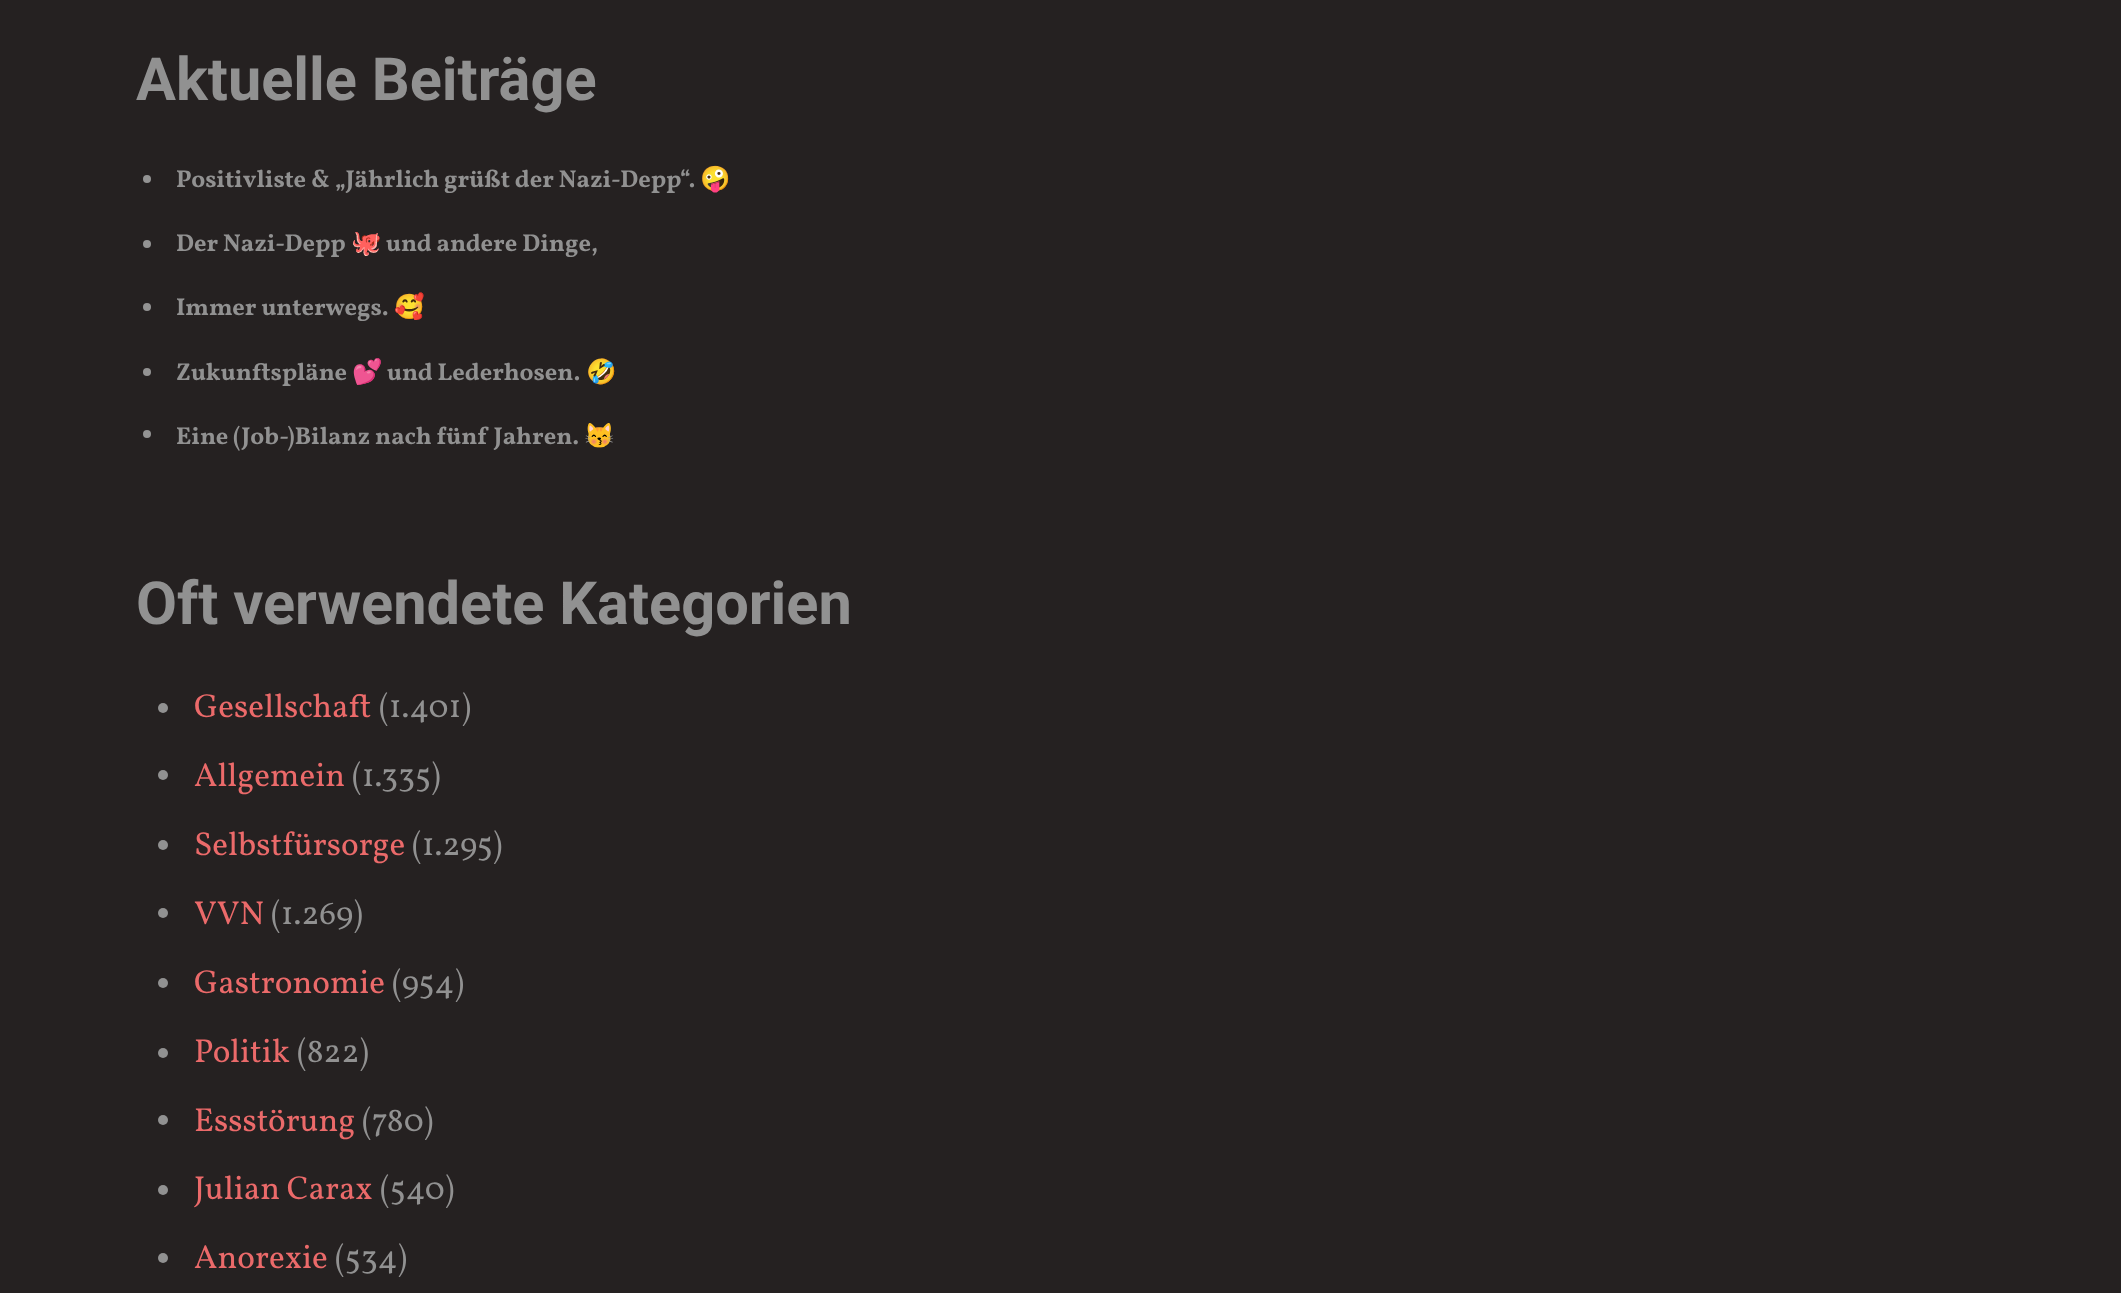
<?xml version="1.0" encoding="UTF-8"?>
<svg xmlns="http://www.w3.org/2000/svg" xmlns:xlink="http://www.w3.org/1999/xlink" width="2121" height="1293">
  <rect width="100%" height="100%" fill="#252121" />
  <circle cx="147" cy="179" r="4" fill="#939393" />
  <circle cx="147" cy="244" r="4" fill="#939393" />
  <circle cx="147" cy="307" r="4" fill="#939393" />
  <circle cx="147" cy="372" r="4" fill="#939393" />
  <circle cx="147" cy="434" r="4" fill="#939393" />
  <circle cx="163" cy="708" r="5" fill="#919191" />
  <circle cx="163" cy="775" r="5" fill="#919191" />
  <circle cx="163" cy="845" r="5" fill="#919191" />
  <circle cx="163" cy="913" r="5" fill="#919191" />
  <circle cx="163" cy="983" r="5" fill="#919191" />
  <circle cx="163" cy="1053" r="5" fill="#919191" />
  <circle cx="163" cy="1120" r="5" fill="#919191" />
  <circle cx="163" cy="1190" r="5" fill="#919191" />
  <circle cx="163" cy="1258" r="5" fill="#919191" />
  <text x="136" y="100" style="font-family: Roboto; font-size: 59.5px; font-weight: bold; fill: #919191">Aktuelle Beiträge</text>
  <text x="176" y="187" style="font-family: Vollkorn; font-size: 24.5px; font-weight: bold; fill: #919191">Positivliste &amp; „Jährlich grüßt der Nazi-Depp“.</text>
  <text x="700" y="187" style="font-family: Noto Color Emoji; font-size: 24.5px; font-weight: bold; fill: #919191">🤪</text>
  <text x="176" y="251" style="font-family: Vollkorn; font-size: 24.5px; font-weight: bold; fill: #919191">Der Nazi-Depp</text>
  <text x="351" y="251" style="font-family: Noto Color Emoji; font-size: 24.5px; font-weight: bold; fill: #919191">🐙</text>
  <text x="386" y="251" style="font-family: Vollkorn; font-size: 24.5px; font-weight: bold; fill: #919191">und andere Dinge,</text>
  <text x="176" y="315" style="font-family: Vollkorn; font-size: 24.5px; font-weight: bold; fill: #919191">Immer unterwegs.</text>
  <text x="394" y="315" style="font-family: Noto Color Emoji; font-size: 24.5px; font-weight: bold; fill: #919191">🥰</text>
  <text x="176" y="380" style="font-family: Vollkorn; font-size: 24.5px; font-weight: bold; fill: #919191">Zukunftspläne</text>
  <text x="352" y="380" style="font-family: Noto Color Emoji; font-size: 24.5px; font-weight: bold; fill: #919191">💕</text>
  <text x="387" y="380" style="font-family: Vollkorn; font-size: 24.5px; font-weight: bold; fill: #919191">und Lederhosen.</text>
  <text x="586" y="380" style="font-family: Noto Color Emoji; font-size: 24.5px; font-weight: bold; fill: #919191">🤣</text>
  <text x="176" y="444" style="font-family: Vollkorn; font-size: 24.5px; font-weight: bold; fill: #919191">Eine (Job-)Bilanz nach fünf Jahren.</text>
  <text x="584" y="444" style="font-family: Noto Color Emoji; font-size: 24.5px; font-weight: bold; fill: #919191">😽</text>
  <text x="136" y="624" style="font-family: Roboto; font-size: 59.5px; font-weight: bold; fill: #919191">Oft verwendete Kategorien</text>
  <text x="194" y="717" style="font-family: Vollkorn; font-size: 33.25px; fill: #eb6a6a">Gesellschaft</text>
  <text x="379" y="717" style="font-family: Vollkorn; font-size: 33.25px; fill: #919191">(1.401)</text>
  <text x="194" y="786" style="font-family: Vollkorn; font-size: 33.25px; fill: #eb6a6a">Allgemein</text>
  <text x="352" y="786" style="font-family: Vollkorn; font-size: 33.25px; fill: #919191">(1.335)</text>
  <text x="194" y="855" style="font-family: Vollkorn; font-size: 33.25px; fill: #eb6a6a">Selbstfürsorge</text>
  <text x="412" y="855" style="font-family: Vollkorn; font-size: 33.25px; fill: #919191">(1.295)</text>
  <text x="194" y="924" style="font-family: Vollkorn; font-size: 33.25px; fill: #eb6a6a">VVN</text>
  <text x="271" y="924" style="font-family: Vollkorn; font-size: 33.25px; fill: #919191">(1.269)</text>
  <text x="194" y="993" style="font-family: Vollkorn; font-size: 33.25px; fill: #eb6a6a">Gastronomie</text>
  <text x="392" y="993" style="font-family: Vollkorn; font-size: 33.25px; fill: #919191">(954)</text>
  <text x="194" y="1062" style="font-family: Vollkorn; font-size: 33.25px; fill: #eb6a6a">Politik</text>
  <text x="297" y="1062" style="font-family: Vollkorn; font-size: 33.25px; fill: #919191">(822)</text>
  <text x="194" y="1131" style="font-family: Vollkorn; font-size: 33.25px; fill: #eb6a6a">Essstörung</text>
  <text x="362" y="1131" style="font-family: Vollkorn; font-size: 33.25px; fill: #919191">(780)</text>
  <text x="194" y="1199" style="font-family: Vollkorn; font-size: 33.25px; fill: #eb6a6a">Julian Carax</text>
  <text x="380" y="1199" style="font-family: Vollkorn; font-size: 33.25px; fill: #919191">(540)</text>
  <text x="194" y="1268" style="font-family: Vollkorn; font-size: 33.25px; fill: #eb6a6a">Anorexie</text>
  <text x="335" y="1268" style="font-family: Vollkorn; font-size: 33.25px; fill: #919191">(534)</text>
</svg>
